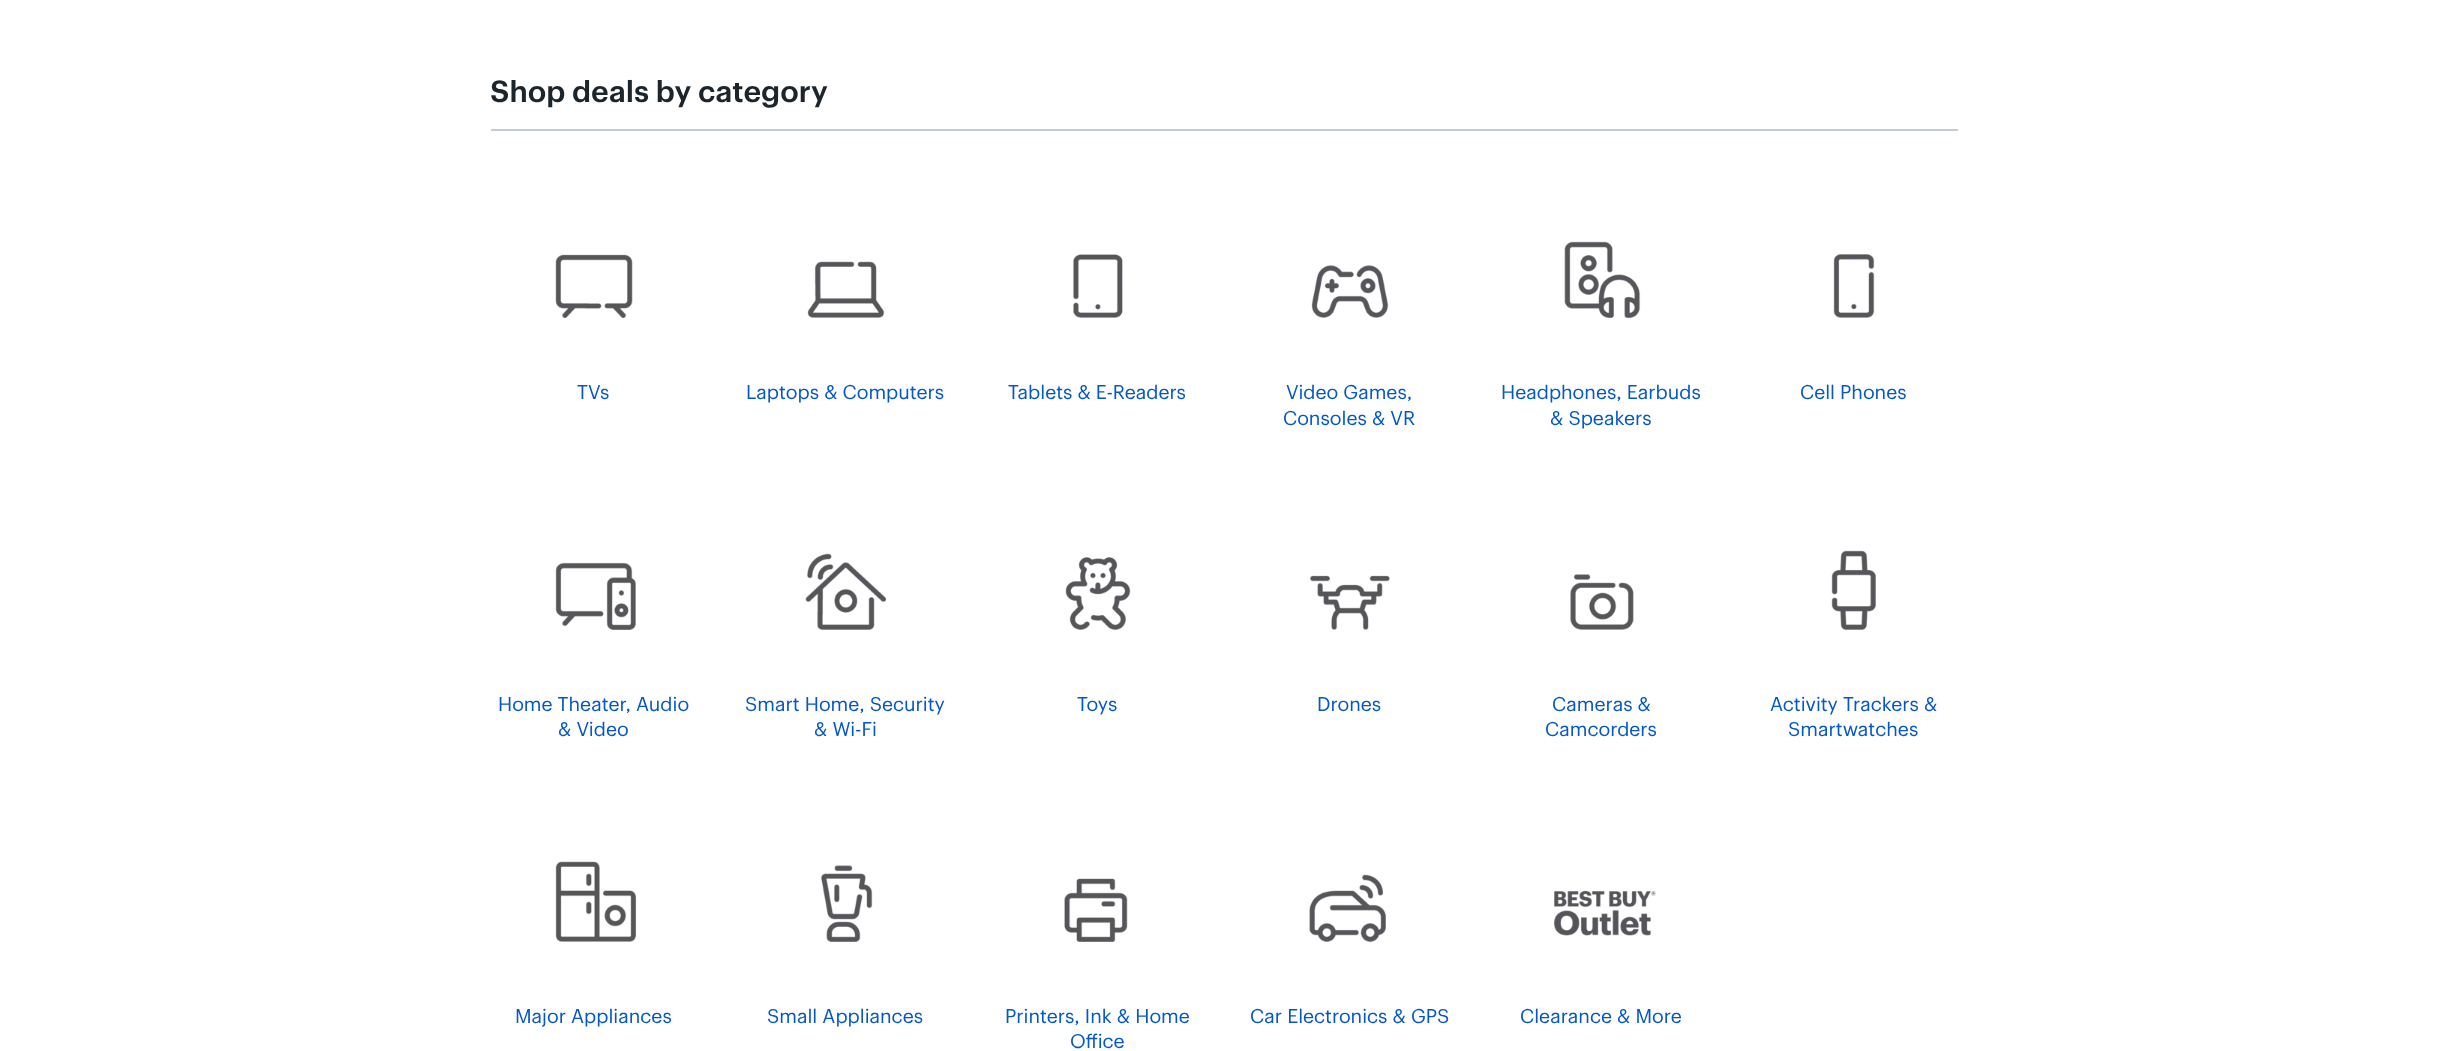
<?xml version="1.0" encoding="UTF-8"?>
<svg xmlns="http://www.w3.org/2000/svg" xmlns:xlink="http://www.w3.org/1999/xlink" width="2446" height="1051">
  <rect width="100%" height="100%" fill="#ffffff" />
  <rect x="491" y="129" width="1467" height="2" fill="#c5cbd5" />
  <image x="555" y="254" width="78" height="64" xlink:href="image1.png" />
  <image x="807" y="261" width="78" height="57" xlink:href="image2.png" />
  <image x="1073" y="254" width="50" height="64" xlink:href="image3.png" />
  <image x="1311" y="265" width="78" height="53" xlink:href="image4.png" />
  <image x="1564" y="241" width="77" height="77" xlink:href="image5.png" />
  <image x="1833" y="254" width="42" height="64" xlink:href="image6.png" />
  <image x="555" y="562" width="81" height="68" xlink:href="image7.png" />
  <image x="805" y="553" width="82" height="77" xlink:href="image8.png" />
  <image x="1065" y="557" width="66" height="73" xlink:href="image9.png" />
  <image x="1310" y="575" width="80" height="55" xlink:href="image10.png" />
  <image x="1570" y="574" width="64" height="56" xlink:href="image11.png" />
  <image x="1831" y="550" width="45" height="80" xlink:href="image12.png" />
  <image x="555" y="861" width="82" height="81" xlink:href="image13.png" />
  <image x="821" y="865" width="52" height="77" xlink:href="image14.png" />
  <image x="1064" y="878" width="64" height="64" xlink:href="image15.png" />
  <image x="1309" y="874" width="77" height="68" xlink:href="image16.png" />
  <image x="1553" y="890" width="103" height="46" xlink:href="image17.png" />
  <text x="490" y="102" style="font-family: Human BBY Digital; font-size: 30px; font-weight: 500; fill: #1d252c">Shop deals by category</text>
  <text x="577" y="399" style="font-family: Human BBY Digital; font-size: 19.5px; fill: #0457c8">TVs</text>
  <text x="746" y="399" style="font-family: Human BBY Digital; font-size: 19.5px; fill: #0457c8">Laptops &amp; Computers</text>
  <text x="1008" y="399" style="font-family: Human BBY Digital; font-size: 19.5px; fill: #0457c8">Tablets &amp; E-Readers</text>
  <text x="1286" y="399" style="font-family: Human BBY Digital; font-size: 19.5px; fill: #0457c8">Video Games,</text>
  <text x="1283" y="425" style="font-family: Human BBY Digital; font-size: 19.5px; fill: #0457c8">Consoles &amp; VR</text>
  <text x="1501" y="399" style="font-family: Human BBY Digital; font-size: 19.5px; fill: #0457c8">Headphones, Earbuds</text>
  <text x="1550" y="425" style="font-family: Human BBY Digital; font-size: 19.5px; fill: #0457c8">&amp; Speakers</text>
  <text x="1800" y="399" style="font-family: Human BBY Digital; font-size: 19.5px; fill: #0457c8">Cell Phones</text>
  <text x="498" y="711" style="font-family: Human BBY Digital; font-size: 19.5px; fill: #0457c8">Home Theater, Audio</text>
  <text x="558" y="736" style="font-family: Human BBY Digital; font-size: 19.5px; fill: #0457c8">&amp; Video</text>
  <text x="745" y="711" style="font-family: Human BBY Digital; font-size: 19.5px; fill: #0457c8">Smart Home, Security</text>
  <text x="814" y="736" style="font-family: Human BBY Digital; font-size: 19.5px; fill: #0457c8">&amp; Wi-Fi</text>
  <text x="1077" y="711" style="font-family: Human BBY Digital; font-size: 19.5px; fill: #0457c8">Toys</text>
  <text x="1317" y="711" style="font-family: Human BBY Digital; font-size: 19.5px; fill: #0457c8">Drones</text>
  <text x="1552" y="711" style="font-family: Human BBY Digital; font-size: 19.5px; fill: #0457c8">Cameras &amp;</text>
  <text x="1545" y="736" style="font-family: Human BBY Digital; font-size: 19.5px; fill: #0457c8">Camcorders</text>
  <text x="1770" y="711" style="font-family: Human BBY Digital; font-size: 19.5px; fill: #0457c8">Activity Trackers &amp;</text>
  <text x="1788" y="736" style="font-family: Human BBY Digital; font-size: 19.5px; fill: #0457c8">Smartwatches</text>
  <text x="515" y="1023" style="font-family: Human BBY Digital; font-size: 19.5px; fill: #0457c8">Major Appliances</text>
  <text x="767" y="1023" style="font-family: Human BBY Digital; font-size: 19.5px; fill: #0457c8">Small Appliances</text>
  <text x="1005" y="1023" style="font-family: Human BBY Digital; font-size: 19.5px; fill: #0457c8">Printers, Ink &amp; Home</text>
  <text x="1070" y="1048" style="font-family: Human BBY Digital; font-size: 19.5px; fill: #0457c8">Office</text>
  <text x="1250" y="1023" style="font-family: Human BBY Digital; font-size: 19.5px; fill: #0457c8">Car Electronics &amp; GPS</text>
  <text x="1520" y="1023" style="font-family: Human BBY Digital; font-size: 19.5px; fill: #0457c8">Clearance &amp; More</text>
</svg>
